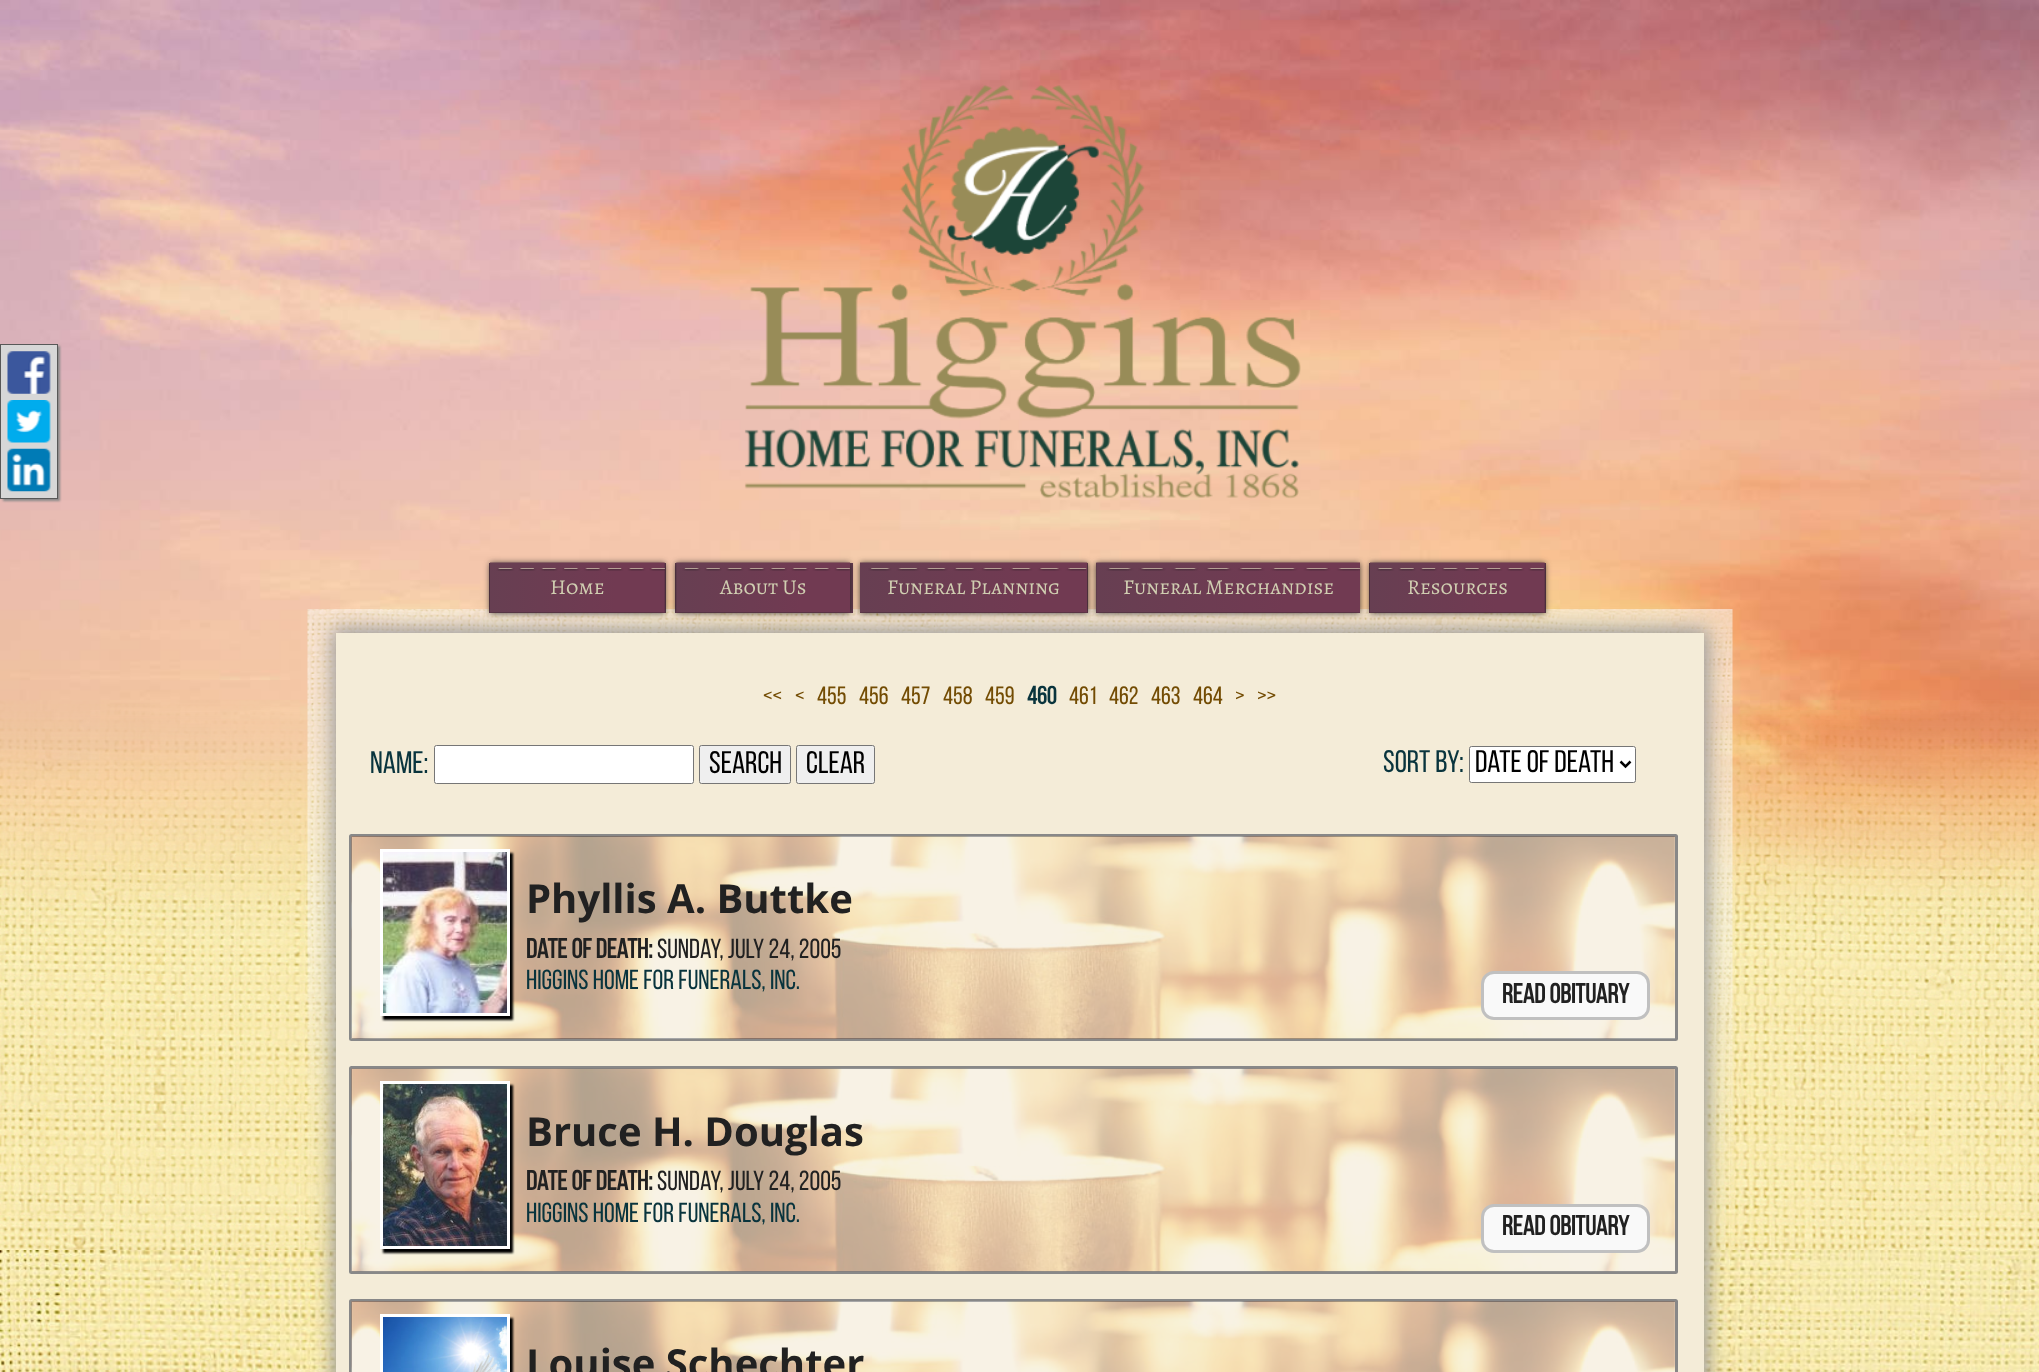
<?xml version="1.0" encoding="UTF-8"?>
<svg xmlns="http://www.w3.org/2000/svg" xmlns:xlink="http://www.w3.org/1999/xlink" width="2039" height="1372">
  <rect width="100%" height="100%" fill="#ffffff" />
  <image x="0" y="1250" width="2039" height="122" xlink:href="image1.png" />
  <image x="0" y="0" width="2039" height="931" xlink:href="image5.png" />
  <rect x="3" y="346" width="57" height="155" fill="#888888" filter="blur(1px)" />
  <rect x="0.5" y="344.5" width="57" height="154" fill="#d7d7d7" stroke="#585858" />
  <image x="7" y="351" width="44" height="43" xlink:href="image2.png" />
  <image x="7" y="400" width="44" height="43" xlink:href="image3.png" />
  <image x="7" y="448" width="44" height="44" xlink:href="image4.png" />
  <image x="0" y="700" width="2039" height="550" xlink:href="image6.png" />
  <image x="744" y="85" width="557" height="414" xlink:href="image7.png" />
  <image x="307" y="609" width="1426" height="599" xlink:href="image13.png" />
  <rect x="333" y="629" width="1375" height="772" fill="#999999" filter="blur(9.5px)" />
  <rect x="489" y="563" width="177" height="50" fill="#663d50" />
  <rect x="490" y="563" width="175" height="50" fill="#181819" fill-opacity="0.8" filter="blur(3px)" />
  <image x="490" y="562" width="175" height="51" xlink:href="image8.png" />
  <rect x="675" y="563" width="178" height="50" fill="#663d50" />
  <rect x="676" y="563" width="174" height="50" fill="#181819" fill-opacity="0.8" filter="blur(3px)" />
  <image x="676" y="562" width="174" height="51" xlink:href="image9.png" />
  <rect x="860" y="563" width="228" height="50" fill="#663d50" />
  <rect x="860" y="563" width="228" height="50" fill="#181819" fill-opacity="0.8" filter="blur(3px)" />
  <image x="860" y="562" width="228" height="51" xlink:href="image10.png" />
  <rect x="1096" y="563" width="264" height="50" fill="#663d50" />
  <rect x="1096" y="563" width="264" height="50" fill="#181819" fill-opacity="0.8" filter="blur(3px)" />
  <image x="1096" y="562" width="264" height="51" xlink:href="image11.png" />
  <rect x="1369" y="563" width="177" height="50" fill="#663d50" />
  <rect x="1370" y="563" width="175" height="50" fill="#181819" fill-opacity="0.8" filter="blur(3px)" />
  <image x="1370" y="562" width="175" height="51" xlink:href="image12.png" />
  <rect x="336" y="633" width="1368" height="739" fill="#f4ecd8" />
  <rect x="434.5" y="745.5" width="259" height="38" rx="2" fill="#ffffff" stroke="#767676" />
  <rect x="699.5" y="745.5" width="91" height="38" rx="2" fill="#efefef" stroke="#767676" />
  <rect x="796.5" y="745.5" width="78" height="38" rx="2" fill="#efefef" stroke="#767676" />
  <rect x="1469.5" y="746.5" width="166" height="36" rx="2" fill="#ffffff" stroke="#767676" />
  <path d="M 1620.5 761.5 l 5 5 l 5 -5" fill="none" stroke="#000000" stroke-width="2.5" />
  <rect x="350.5" y="835.5" width="1326" height="204" rx="1" fill="none" stroke="#888888" stroke-width="3" />
  <image x="351" y="836" width="1324" height="203" xlink:href="image14.png" />
  <rect x="383" y="853" width="130" height="167" fill="#000000" filter="blur(1px)" />
  <image x="383" y="852" width="124" height="161" xlink:href="image15.png" />
  <rect x="381.5" y="850.5" width="127" height="164" fill="none" stroke="#ffffff" stroke-width="3" />
  <rect x="1482.5" y="972.5" width="166" height="46" rx="11.5" fill="#f9f9f9" stroke="#c0c0c0" stroke-width="3" />
  <rect x="350.5" y="1067.5" width="1326" height="205" rx="1" fill="none" stroke="#888888" stroke-width="3" />
  <image x="351" y="1068" width="1324" height="204" xlink:href="image16.png" />
  <rect x="383" y="1085" width="130" height="168" fill="#000000" filter="blur(1px)" />
  <image x="383" y="1084" width="124" height="162" xlink:href="image17.png" />
  <rect x="381.5" y="1082.5" width="127" height="165" fill="none" stroke="#ffffff" stroke-width="3" />
  <rect x="1482.5" y="1205.5" width="166" height="46" rx="11.5" fill="#f9f9f9" stroke="#c0c0c0" stroke-width="3" />
  <rect x="350.5" y="1300.5" width="1326" height="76" rx="1" fill="none" stroke="#888888" stroke-width="3" />
  <image x="351" y="1301" width="1324" height="71" xlink:href="image18.png" />
  <rect x="383" y="1318" width="130" height="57" fill="#000000" filter="blur(1px)" />
  <image x="383" y="1317" width="124" height="55" xlink:href="image19.png" />
  <rect x="381.5" y="1315.5" width="127" height="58" fill="none" stroke="#ffffff" stroke-width="3" />
  <text x="550" y="594" style="font-family: Alegreya SC; font-size: 21.25px; fill: #d0ceb1">Home</text>
  <text x="720" y="594" style="font-family: Alegreya SC; font-size: 21.25px; fill: #d0ceb1">About Us</text>
  <text x="887" y="594" style="font-family: Alegreya SC; font-size: 21.25px; fill: #d0ceb1">Funeral Planning</text>
  <text x="1123" y="594" style="font-family: Alegreya SC; font-size: 21.25px; fill: #d0ceb1">Funeral Merchandise</text>
  <text x="1407" y="594" style="font-family: Alegreya SC; font-size: 21.25px; fill: #d0ceb1">Resources</text>
  <text x="763" y="704" style="font-family: Bebas Neue; font-size: 25px; fill: #734c03">&lt;&lt;</text>
  <text x="795" y="704" style="font-family: Bebas Neue; font-size: 25px; fill: #734c03">&lt;</text>
  <text x="817" y="704" style="font-family: Bebas Neue; font-size: 25px; fill: #734c03">455</text>
  <text x="859" y="704" style="font-family: Bebas Neue; font-size: 25px; fill: #734c03">456</text>
  <text x="901" y="704" style="font-family: Bebas Neue; font-size: 25px; fill: #734c03">457</text>
  <text x="943" y="704" style="font-family: Bebas Neue; font-size: 25px; fill: #734c03">458</text>
  <text x="985" y="704" style="font-family: Bebas Neue; font-size: 25px; fill: #734c03">459</text>
  <text x="1027" y="704" style="font-family: Bebas Neue; font-size: 25px; font-weight: bold; fill: #09343d">460</text>
  <text x="1069" y="704" style="font-family: Bebas Neue; font-size: 25px; fill: #734c03">461</text>
  <text x="1109" y="704" style="font-family: Bebas Neue; font-size: 25px; fill: #734c03">462</text>
  <text x="1151" y="704" style="font-family: Bebas Neue; font-size: 25px; fill: #734c03">463</text>
  <text x="1193" y="704" style="font-family: Bebas Neue; font-size: 25px; fill: #734c03">464</text>
  <text x="1235" y="704" style="font-family: Bebas Neue; font-size: 25px; fill: #734c03">&gt;</text>
  <text x="1257" y="704" style="font-family: Bebas Neue; font-size: 25px; fill: #734c03">&gt;&gt;</text>
  <text x="370" y="773" style="font-family: Bebas Neue; font-size: 31.25px; fill: #09343d">Name:</text>
  <text x="709" y="773" style="font-family: Bebas Neue; font-size: 31.25px; fill: #000000">Search</text>
  <text x="806" y="773" style="font-family: Bebas Neue; font-size: 31.25px; fill: #000000">Clear</text>
  <text x="1383" y="772" style="font-family: Bebas Neue; font-size: 31.25px; fill: #09343d">Sort by:</text>
  <text x="1475" y="772" style="font-family: Bebas Neue; font-size: 31.25px; fill: #000000">Date of Death</text>
  <text x="526" y="913" style="font-family: Open Sans; font-size: 40px; font-weight: bold; fill: #212121">Phyllis A. Buttke</text>
  <text x="526" y="958" style="font-family: Bebas Neue; font-size: 27.5px; font-weight: bold; fill: #212121">Date Of Death:</text>
  <text x="657" y="958" style="font-family: Bebas Neue; font-size: 27.5px; fill: #212121">Sunday, July 24, 2005</text>
  <text x="526" y="989" style="font-family: Bebas Neue; font-size: 27.5px; fill: #09343d">Higgins Home For Funerals, Inc.</text>
  <text x="1502" y="1003" style="font-family: Bebas Neue; font-size: 27.5px; font-weight: bold; fill: #212121">Read Obituary</text>
  <text x="526" y="1146" style="font-family: Open Sans; font-size: 40px; font-weight: bold; fill: #212121">Bruce H. Douglas</text>
  <text x="526" y="1190" style="font-family: Bebas Neue; font-size: 27.5px; font-weight: bold; fill: #212121">Date Of Death:</text>
  <text x="657" y="1190" style="font-family: Bebas Neue; font-size: 27.5px; fill: #212121">Sunday, July 24, 2005</text>
  <text x="526" y="1222" style="font-family: Bebas Neue; font-size: 27.5px; fill: #09343d">Higgins Home For Funerals, Inc.</text>
  <text x="1502" y="1235" style="font-family: Bebas Neue; font-size: 27.5px; font-weight: bold; fill: #212121">Read Obituary</text>
  <text x="526" y="1378" style="font-family: Open Sans; font-size: 40px; font-weight: bold; fill: #212121">Louise Schechter</text>
</svg>
